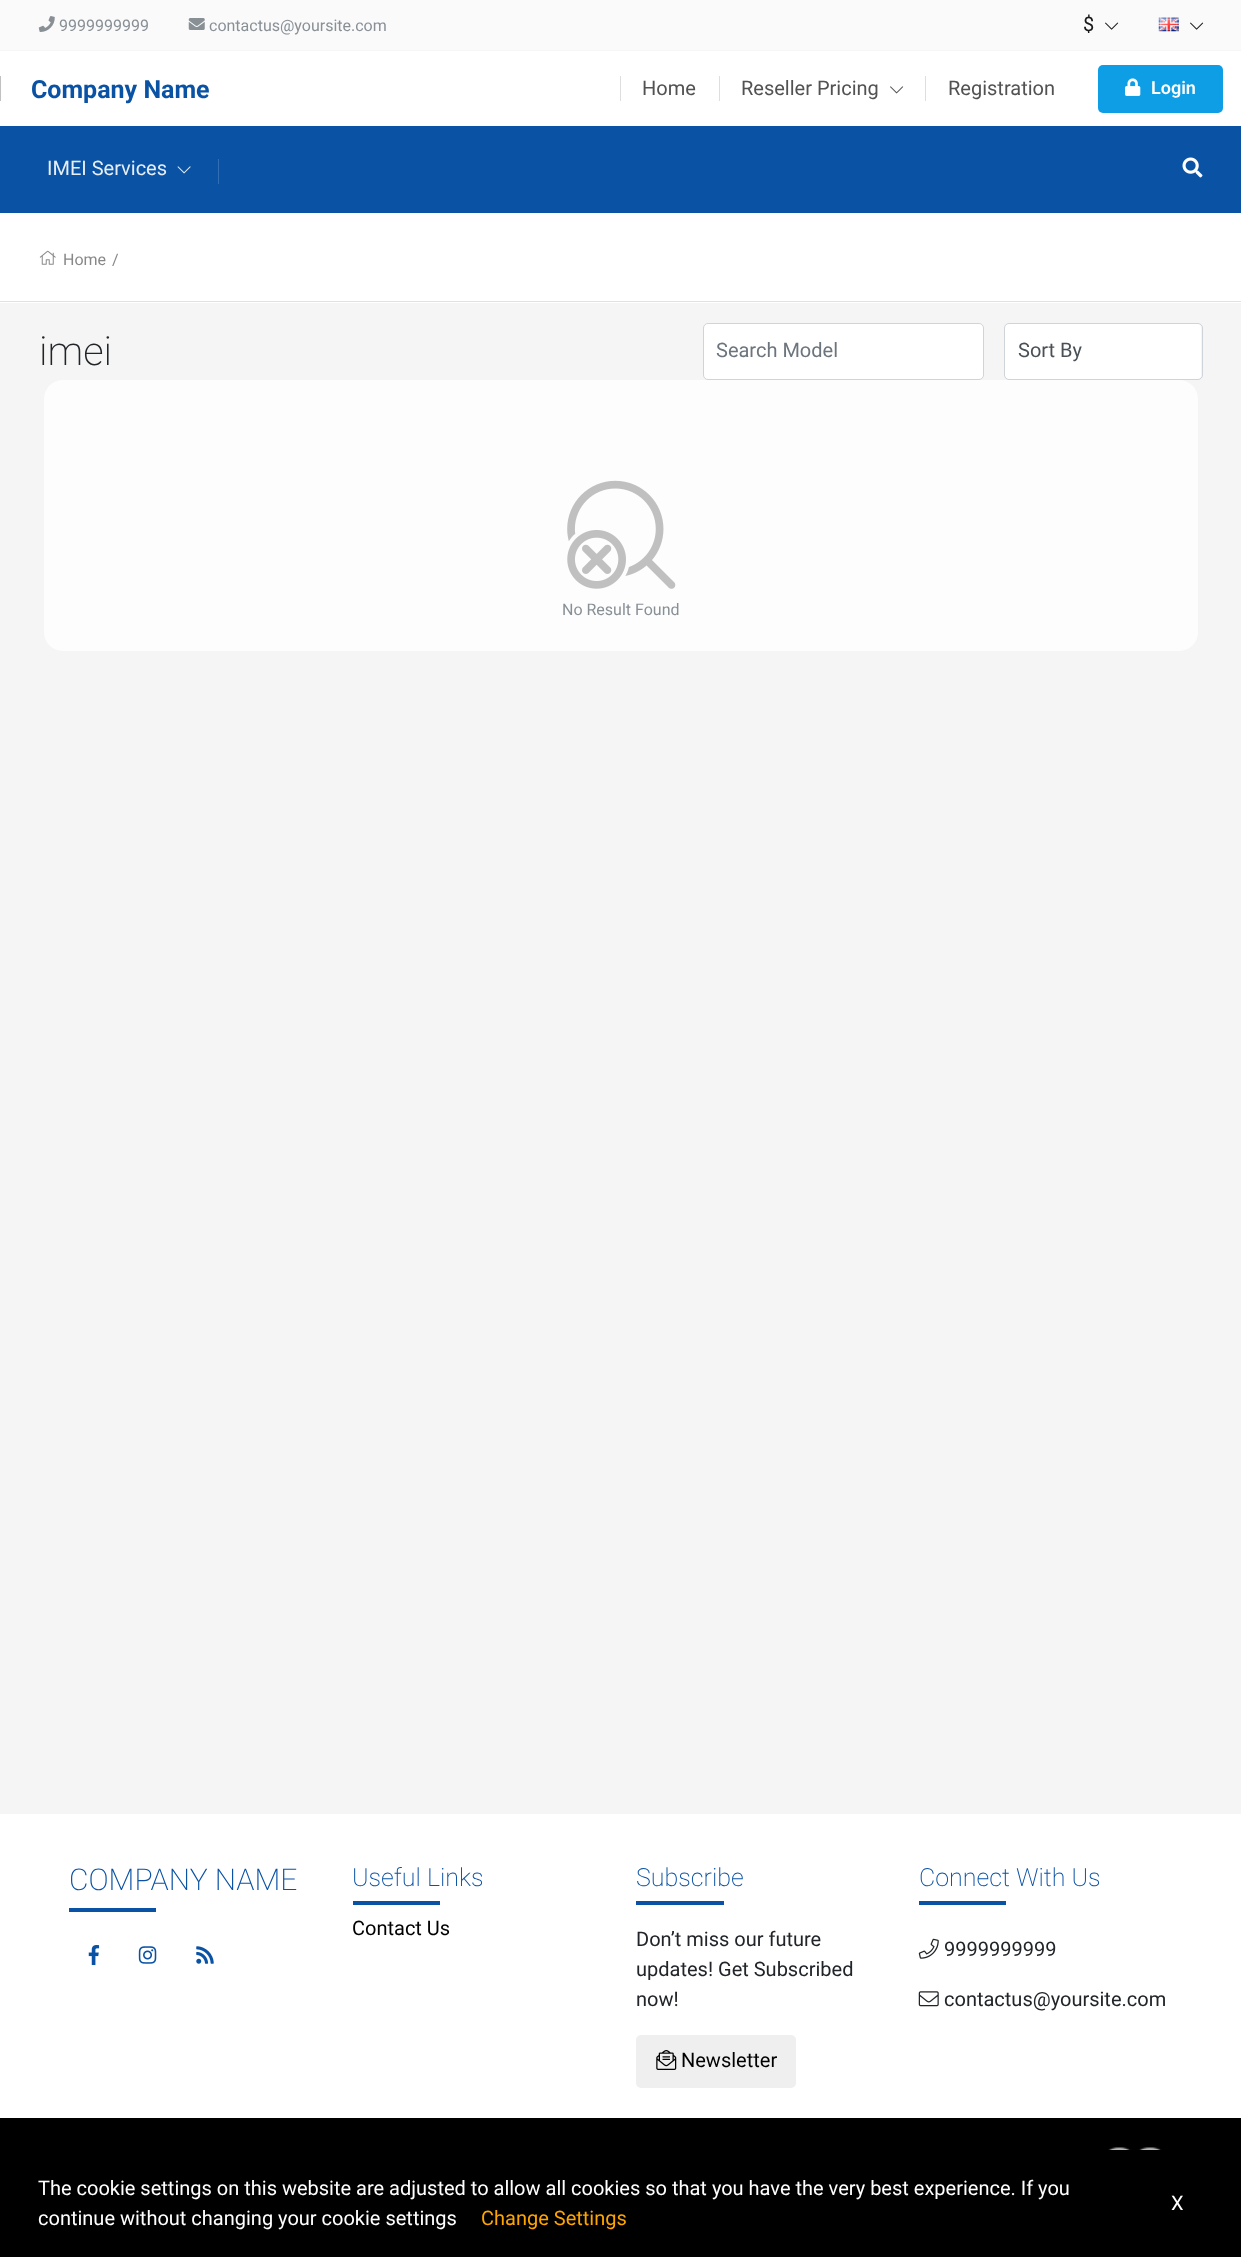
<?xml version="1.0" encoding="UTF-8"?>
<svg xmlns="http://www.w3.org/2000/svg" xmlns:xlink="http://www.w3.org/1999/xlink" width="1241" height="2257">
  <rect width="100%" height="100%" fill="#ffffff" />
  <rect width="1241" height="50" fill="#fafafa" />
  <rect y="50" width="1241" height="1" fill="#f6f6f6" />
  <image x="38" y="16" width="17" height="16" xlink:href="image1.png" />
  <image x="188" y="18" width="17" height="12" xlink:href="image2.png" />
  <image x="1105" y="22" width="14" height="8" xlink:href="image3.png" />
  <image x="1158" y="17" width="21" height="15" xlink:href="image4.png" />
  <image x="1190" y="22" width="14" height="8" xlink:href="image3.png" />
  <rect y="76" width="1" height="25" fill="#c1c1c1" />
  <rect x="620" y="76" width="1" height="25" fill="#dedede" />
  <rect x="719" y="76" width="1" height="25" fill="#dedede" />
  <image x="890" y="86" width="14" height="8" xlink:href="image5.png" />
  <rect x="925" y="76" width="1" height="25" fill="#dedede" />
  <rect x="1098" y="65" width="125" height="48" rx="5" fill="#0e9ee5" />
  <image x="1125" y="78" width="16" height="18" xlink:href="image6.png" />
  <rect y="126" width="1241" height="87" fill="#0a52a4" />
  <image x="177" y="166" width="14" height="8" xlink:href="image7.png" />
  <rect x="218" y="159" width="1" height="25" fill="#316eb3" />
  <image x="1182" y="157" width="21" height="21" xlink:href="image8.png" />
  <rect y="303" width="1241" height="1511" fill="#f5f5f5" />
  <rect y="301" width="1241" height="1" fill="#dee2e6" />
  <image x="39" y="250" width="17" height="15" xlink:href="image9.png" />
  <rect x="703.5" y="323.5" width="280" height="56" rx="4.5" fill="#ffffff" stroke="#ced4da" />
  <rect x="1005" y="324" width="196" height="55" rx="4" fill="#ffffff" />
  <rect x="1004.5" y="323.5" width="198" height="56" rx="4.5" fill="none" stroke="#ced4da" />
  <rect x="44" y="380" width="1154" height="271" rx="19" fill="#fdfdfd" />
  <image x="567" y="480" width="109" height="109" xlink:href="image10.png" />
  <rect x="69" y="1908" width="87" height="4" fill="#0a52a4" />
  <image x="88" y="1945" width="12" height="20" xlink:href="image11.png" />
  <image x="138" y="1946" width="19" height="18" xlink:href="image12.png" />
  <image x="196" y="1946" width="18" height="18" xlink:href="image13.png" />
  <rect x="353" y="1901" width="87" height="4" fill="#0a52a4" />
  <rect x="636" y="1901" width="88" height="4" fill="#0a52a4" />
  <rect x="636" y="2035" width="160" height="53" rx="5" fill="#efefef" />
  <image x="656" y="2050" width="21" height="20" xlink:href="image14.png" />
  <rect x="919" y="1901" width="87" height="4" fill="#0a52a4" />
  <image x="918" y="1938" width="21" height="21" xlink:href="image15.png" />
  <image x="918" y="1991" width="21" height="16" xlink:href="image16.png" />
  <rect y="2118" width="1241" height="139" fill="#000000" />
  <image x="1108" y="2147" width="54" height="3" xlink:href="image17.png" />
  <text x="59" y="31" style="font-family: Roboto; font-size: 16px; fill: #889096">9999999999</text>
  <text x="209" y="31" style="font-family: Roboto; font-size: 16px; fill: #889096">contactus@yoursite.com</text>
  <text x="1083" y="31" style="font-family: Roboto; font-size: 20px; fill: #191919">$</text>
  <text x="31" y="98" style="font-family: Roboto; font-size: 25px; font-weight: bold; fill: #0a52a4">Company Name</text>
  <text x="642" y="95" style="font-family: Roboto; font-size: 20px; fill: #525252">Home</text>
  <text x="741" y="95" style="font-family: Roboto; font-size: 20px; fill: #525252">Reseller Pricing</text>
  <text x="948" y="95" style="font-family: Roboto; font-size: 20px; fill: #525252">Registration</text>
  <text x="1151" y="94" style="font-family: Roboto; font-size: 18px; font-weight: 600; fill: #ffffff">Login</text>
  <text x="47" y="175" style="font-family: Roboto; font-size: 20px; fill: #e7eef6">IMEI Services</text>
  <text x="63" y="265" style="font-family: Roboto; font-size: 16px; fill: #888888">Home</text>
  <text x="112" y="265" style="font-family: Roboto; font-size: 16px; fill: #888888">/</text>
  <text x="39" y="365" style="font-family: Roboto; font-size: 40px; font-weight: 200; fill: #212529">imei</text>
  <text x="716" y="357" style="font-family: Roboto; font-size: 20px; fill: #6c757d">Search Model</text>
  <text x="1018" y="357" style="font-family: Roboto; font-size: 20px; fill: #495057">Sort By</text>
  <text x="562" y="615" style="font-family: Roboto; font-size: 16px; fill: #889096">No Result Found</text>
  <text x="69" y="1890" style="font-family: Roboto; font-size: 30px; font-weight: 200; fill: #0a52a4">COMPANY NAME</text>
  <text x="352" y="1886" style="font-family: Roboto; font-size: 25px; font-weight: 200; fill: #0a52a4">Useful Links</text>
  <text x="352" y="1935" style="font-family: Roboto; font-size: 20px; fill: #000000">Contact Us</text>
  <text x="636" y="1886" style="font-family: Roboto; font-size: 25px; font-weight: 200; fill: #0a52a4">Subscribe</text>
  <text x="636" y="1946" style="font-family: Roboto; font-size: 20px; fill: #212529">Don’t miss our future</text>
  <text x="636" y="1976" style="font-family: Roboto; font-size: 20px; fill: #212529">updates! Get Subscribed</text>
  <text x="636" y="2006" style="font-family: Roboto; font-size: 20px; fill: #212529">now!</text>
  <text x="681" y="2067" style="font-family: Roboto; font-size: 20px; fill: #000000">Newsletter</text>
  <text x="919" y="1886" style="font-family: Roboto; font-size: 25px; font-weight: 200; fill: #0a52a4">Connect With Us</text>
  <text x="944" y="1956" style="font-family: Roboto; font-size: 20px; fill: #212529">9999999999</text>
  <text x="944" y="2006" style="font-family: Roboto; font-size: 20px; fill: #212529">contactus@yoursite.com</text>
  <text x="38" y="2195" style="font-family: Roboto; font-size: 20px; fill: #ffffff">The cookie settings on this website are adjusted to allow all cookies so that you have the very best experience. If you</text>
  <text x="38" y="2225" style="font-family: Roboto; font-size: 20px; fill: #ffffff">continue without changing your cookie settings</text>
  <text x="481" y="2225" style="font-family: Roboto; font-size: 20px; fill: #ffa500">Change Settings</text>
  <text x="1171" y="2210" style="font-family: Roboto; font-size: 20px; fill: #ffffff">X</text>
</svg>
